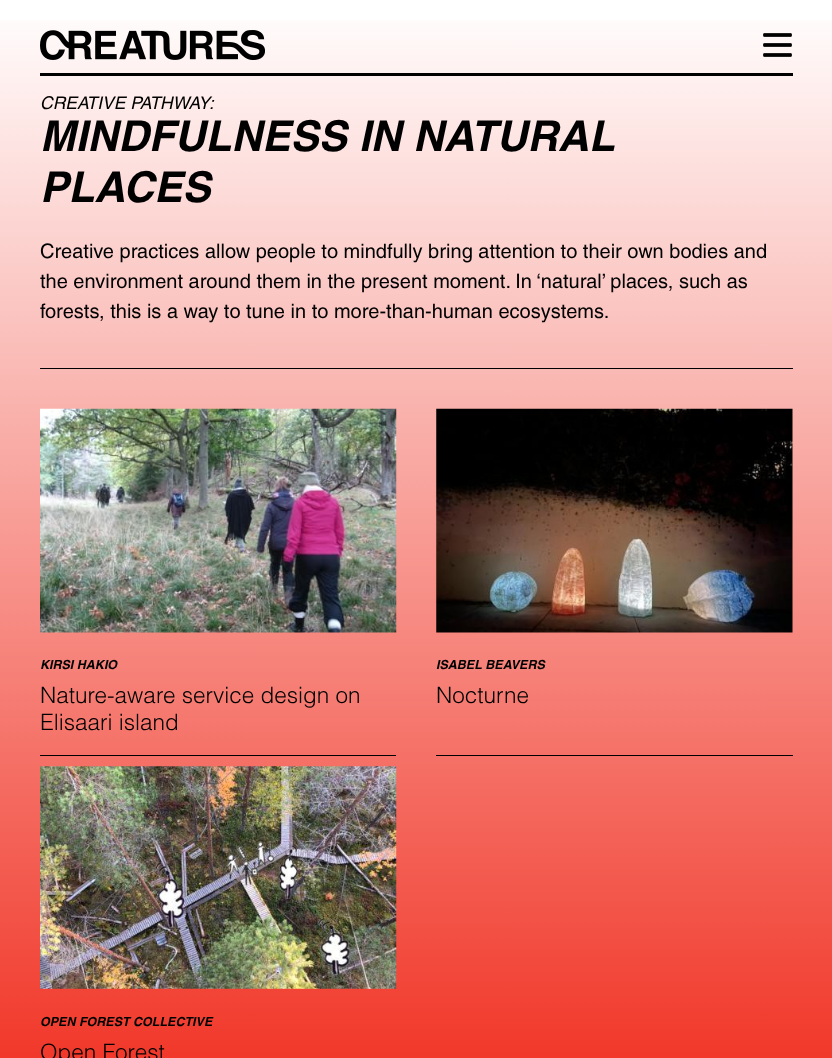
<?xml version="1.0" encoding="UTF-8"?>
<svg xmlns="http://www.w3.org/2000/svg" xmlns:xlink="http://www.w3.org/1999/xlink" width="832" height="1058">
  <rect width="100%" height="100%" fill="#ffffff" />
  <image x="0" y="20" width="832" height="1038" xlink:href="image1.png" />
  <rect x="40" y="73" width="753" height="3" fill="#000000" />
  <image x="40" y="30" width="225" height="30" xlink:href="image2.png" />
  <image x="763" y="33" width="29" height="24" xlink:href="image3.png" />
  <rect x="40" y="368" width="753" height="1" fill="#000000" />
  <rect x="40" y="755" width="356" height="1" fill="#000000" />
  <image x="40" y="408" width="357" height="225" xlink:href="image4.png" />
  <rect x="436" y="755" width="357" height="1" fill="#000000" />
  <image x="436" y="408" width="357" height="225" xlink:href="image5.png" />
  <image x="40" y="766" width="357" height="223" xlink:href="image6.png" />
  <text x="40" y="109" style="font-family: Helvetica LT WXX; font-size: 17.5px; font-style: italic; fill: #000000">CREATIVE PATHWAY:</text>
  <text x="40" y="151" style="font-family: Helvetica LT WXX; font-size: 42.5px; font-weight: bold; font-style: italic; fill: #000000">MINDFULNESS IN NATURAL</text>
  <text x="40" y="202" style="font-family: Helvetica LT WXX; font-size: 42.5px; font-weight: bold; font-style: italic; fill: #000000">PLACES</text>
  <text x="40" y="258" style="font-family: Helvetica LT WXX; font-size: 20px; fill: #000000">Creative practices allow people to mindfully bring attention to their own bodies and</text>
  <text x="40" y="288" style="font-family: Helvetica LT WXX; font-size: 20px; fill: #000000">the environment around them in the present moment. In ‘natural’ places, such as</text>
  <text x="40" y="318" style="font-family: Helvetica LT WXX; font-size: 20px; fill: #000000">forests, this is a way to tune in to more-than-human ecosystems.</text>
  <text x="40" y="669" style="font-family: Helvetica LT WXX; font-size: 12.5px; font-weight: bold; font-style: italic; fill: #000000">KIRSI HAKIO</text>
  <text x="40" y="703" style="font-family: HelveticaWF; font-size: 22.5px; font-weight: 300; fill: #000000">Nature-aware service design on</text>
  <text x="40" y="730" style="font-family: HelveticaWF; font-size: 22.5px; font-weight: 300; fill: #000000">Elisaari island</text>
  <text x="436" y="669" style="font-family: Helvetica LT WXX; font-size: 12.5px; font-weight: bold; font-style: italic; fill: #000000">ISABEL BEAVERS</text>
  <text x="436" y="703" style="font-family: HelveticaWF; font-size: 22.5px; font-weight: 300; fill: #000000">Nocturne</text>
  <text x="40" y="1026" style="font-family: Helvetica LT WXX; font-size: 12.5px; font-weight: bold; font-style: italic; fill: #000000">OPEN FOREST COLLECTIVE</text>
  <text x="40" y="1060" style="font-family: HelveticaWF; font-size: 22.5px; font-weight: 300; fill: #000000">Open Forest</text>
</svg>
